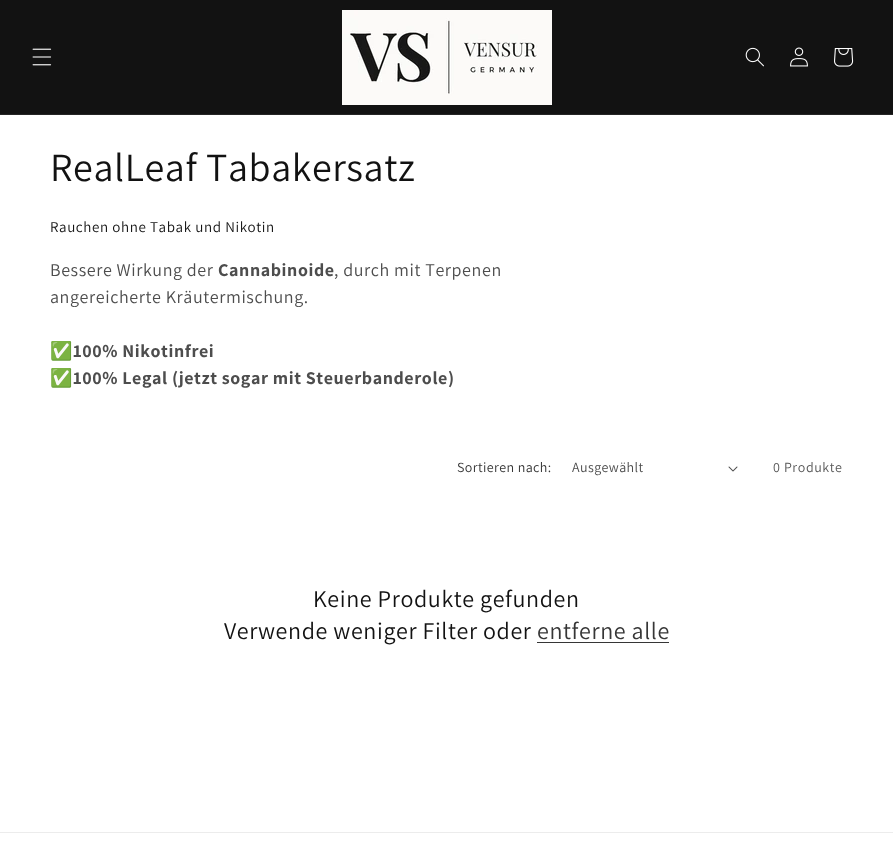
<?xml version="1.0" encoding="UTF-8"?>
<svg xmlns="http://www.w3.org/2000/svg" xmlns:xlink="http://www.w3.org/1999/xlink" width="893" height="862">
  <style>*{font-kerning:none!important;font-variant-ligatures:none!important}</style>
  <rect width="100%" height="100%" fill="#ffffff" />
  <rect width="893" height="114" fill="#121212" />
  <rect y="114" width="893" height="1" fill="#252525" />
  <image x="32" y="48" width="20" height="18" xlink:href="image1.png" />
  <image x="342" y="10" width="210" height="95" xlink:href="image2.png" />
  <image x="745" y="47" width="19" height="20" xlink:href="image3.png" />
  <image x="790" y="47" width="18" height="20" xlink:href="image4.png" />
  <image x="834" y="48" width="20" height="19" xlink:href="image5.png" />
  <image x="728" y="466" width="10" height="6" xlink:href="image6.png" />
  <rect x="537" y="642" width="132" height="1" fill="#363636" />
  <rect y="832" width="893" height="1" fill="#ececec" />
  <text x="50" y="181" style="font-family: Assistant; font-size: 40px; letter-spacing: 0.6px; fill: #121212">RealLeaf Tabakersatz</text>
  <text x="50" y="232" style="font-family: Assistant; font-size: 15px; letter-spacing: 0.6px; fill: #121212">Rauchen ohne Tabak und Nikotin</text>
  <text x="50" y="276" style="font-family: Assistant; font-size: 18px; letter-spacing: 0.6px; fill: #4d4d4d">Bessere Wirkung der</text>
  <text x="218" y="276" style="font-family: Assistant; font-size: 18px; font-weight: bold; letter-spacing: 0.6px; fill: #4d4d4d">Cannabinoide</text>
  <text x="334" y="276" style="font-family: Assistant; font-size: 18px; letter-spacing: 0.6px; fill: #4d4d4d">, durch mit Terpenen</text>
  <text x="50" y="303" style="font-family: Assistant; font-size: 18px; letter-spacing: 0.6px; fill: #4d4d4d">angereicherte Kräutermischung.</text>
  <text x="50" y="357" style="font-family: Noto Color Emoji; font-size: 18px; letter-spacing: 0.6px; fill: #4d4d4d">✅</text>
  <text x="73" y="357" style="font-family: Assistant; font-size: 18px; font-weight: bold; letter-spacing: 0.6px; fill: #4d4d4d">100% Nikotinfrei</text>
  <text x="50" y="384" style="font-family: Noto Color Emoji; font-size: 18px; font-weight: bold; letter-spacing: 0.6px; fill: #4d4d4d">✅</text>
  <text x="73" y="384" style="font-family: Assistant; font-size: 18px; font-weight: bold; letter-spacing: 0.6px; fill: #4d4d4d">100% Legal (jetzt sogar mit Steuerbanderole)</text>
  <text x="457" y="472" style="font-family: Assistant; font-size: 14px; letter-spacing: 0.4px; fill: #363636">Sortieren nach:</text>
  <text x="572" y="472" style="font-family: Assistant; font-size: 14px; letter-spacing: 0.4px; fill: #4d4d4d">Ausgewählt</text>
  <text x="773" y="472" style="font-family: Assistant; font-size: 14px; letter-spacing: 0.6px; fill: #595959">0 Produkte</text>
  <text x="313" y="607" style="font-family: Assistant; font-size: 24px; letter-spacing: 0.6px; fill: #121212">Keine Produkte gefunden</text>
  <text x="224" y="639" style="font-family: Assistant; font-size: 24px; letter-spacing: 0.6px; fill: #121212">Verwende weniger Filter oder</text>
  <text x="537" y="639" style="font-family: Assistant; font-size: 24px; letter-spacing: 0.6px; fill: #363636">entferne alle</text>
</svg>
